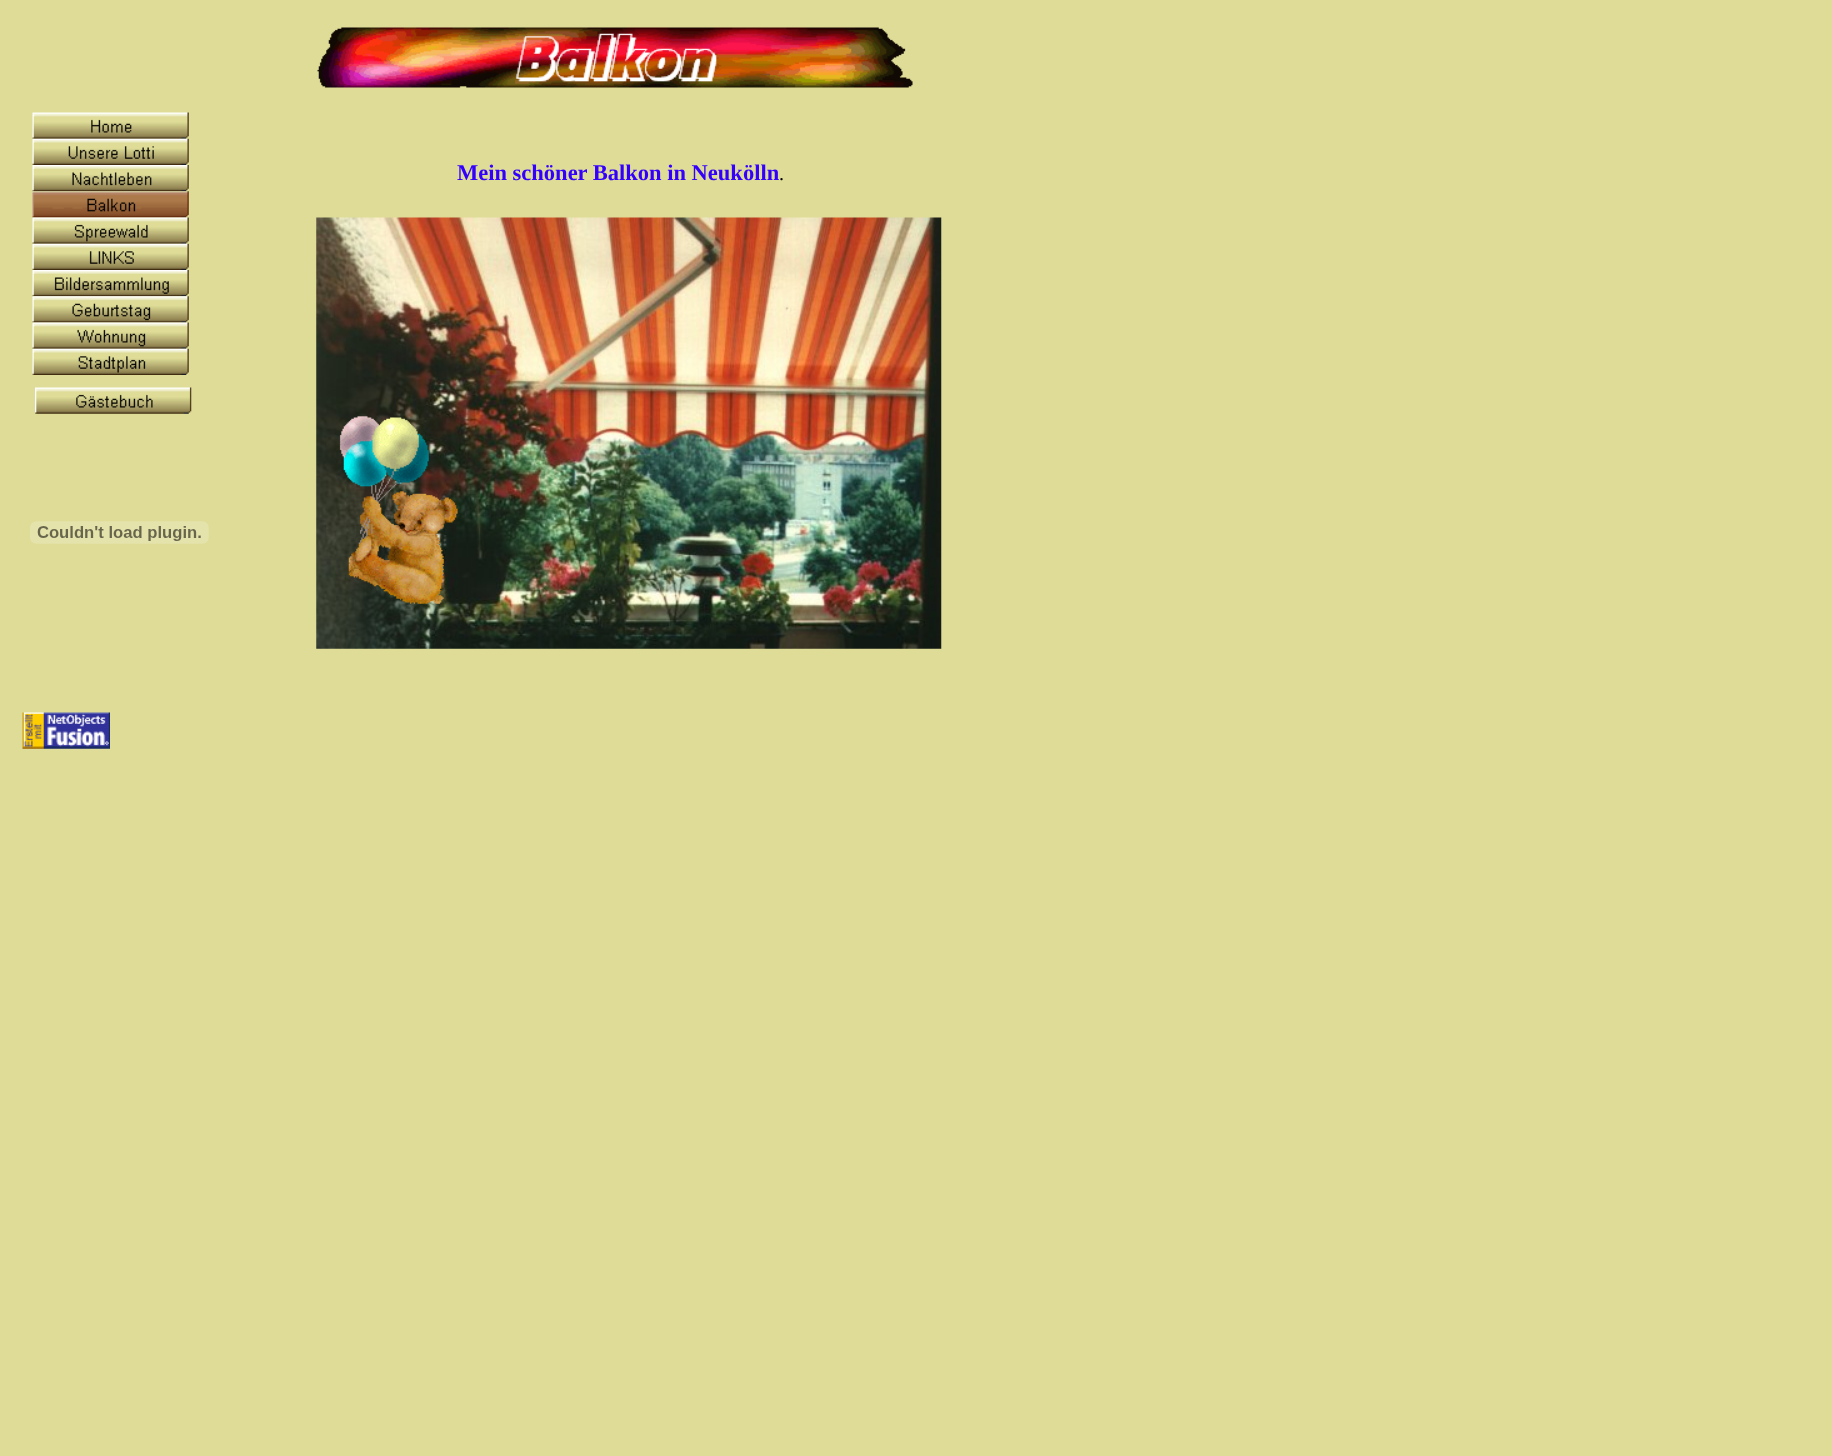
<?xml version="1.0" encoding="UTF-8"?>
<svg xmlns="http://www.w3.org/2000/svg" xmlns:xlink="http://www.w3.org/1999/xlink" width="1832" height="1456">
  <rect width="100%" height="100%" fill="#dedc96" />
  <image x="317" y="27" width="596" height="61" xlink:href="image1.png" />
  <image x="32" y="112" width="157" height="27" xlink:href="image2.png" />
  <image x="32" y="138" width="157" height="27" xlink:href="image3.png" />
  <image x="32" y="165" width="157" height="27" xlink:href="image4.png" />
  <image x="32" y="191" width="157" height="27" xlink:href="image5.png" />
  <image x="32" y="217" width="157" height="27" xlink:href="image6.png" />
  <image x="32" y="243" width="157" height="27" xlink:href="image7.png" />
  <image x="32" y="270" width="157" height="27" xlink:href="image8.png" />
  <image x="32" y="296" width="157" height="27" xlink:href="image9.png" />
  <image x="32" y="322" width="157" height="27" xlink:href="image10.png" />
  <image x="32" y="348" width="157" height="27" xlink:href="image11.png" />
  <image x="35" y="387" width="157" height="27" xlink:href="image12.png" />
  <image x="316" y="217" width="626" height="432" xlink:href="image13.png" />
  <image x="30" y="521" width="179" height="23" xlink:href="image14.png" />
  <image x="339" y="416" width="119" height="188" xlink:href="image15.png" />
  <image x="22" y="712" width="88" height="37" xlink:href="image16.png" />
  <text x="457" y="180" style="font-family: Liberation Serif; font-size: 22.5px; font-weight: bold; fill: #3300ff">Mein schöner Balkon in Neukölln</text>
  <text x="779" y="180" style="font-family: Liberation Serif; font-size: 20px; fill: #000000">.</text>
</svg>
